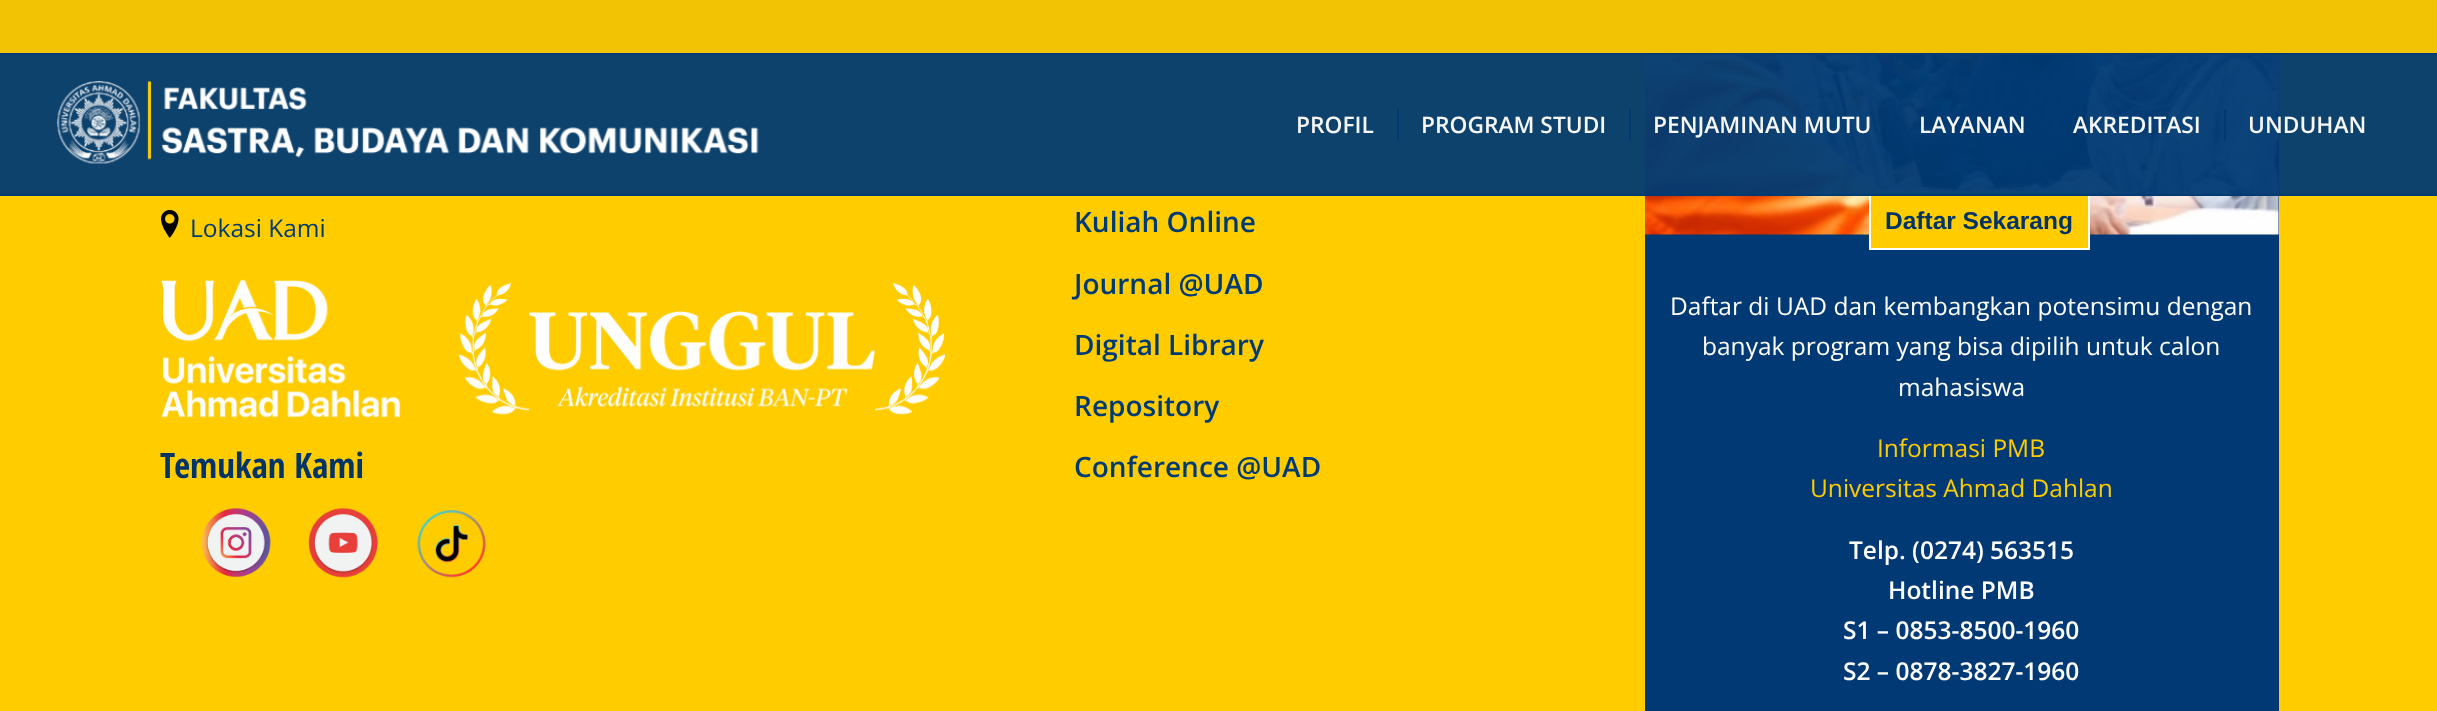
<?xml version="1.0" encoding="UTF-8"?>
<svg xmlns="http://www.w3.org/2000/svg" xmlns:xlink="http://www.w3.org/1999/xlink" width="2437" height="711">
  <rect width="100%" height="100%" fill="#ffcc00" />
  <rect width="2437" height="53" fill="#f2c204" />
  <rect y="53" width="2437" height="2" fill="#003a73" />
  <rect x="1645" y="55" width="634" height="656" fill="#003973" />
  <image x="1645" y="55" width="634" height="180" xlink:href="image7.png" />
  <rect x="1870" y="192" width="219" height="57" fill="#ffcc00" stroke="#ffffff" stroke-width="2" />
  <rect y="55" width="2437" height="139" fill="#003a73" fill-opacity="0.95" />
  <rect y="194" width="2437" height="2" fill="#003a73" />
  <image x="57" y="81" width="702" height="83" xlink:href="image1.png" />
  <rect x="1397" y="109" width="2" height="31" fill="#003a73" />
  <rect x="1629" y="109" width="2" height="31" fill="#003a73" />
  <rect x="1895" y="109" width="2" height="31" fill="#003a73" />
  <rect x="2224" y="109" width="2" height="31" fill="#003a73" />
  <image x="161" y="210" width="18" height="28" xlink:href="image2.png" />
  <image x="161" y="279" width="784" height="139" xlink:href="image3.png" />
  <image x="201" y="508" width="70" height="70" xlink:href="image4.png" />
  <image x="308" y="508" width="70" height="70" xlink:href="image5.png" />
  <image x="417" y="510" width="69" height="68" xlink:href="image6.png" />
  <text x="1296" y="133" style="font-family: Open Sans; font-size: 22.75px; font-weight: 600; fill: #f7f7f7">PROFIL</text>
  <text x="1421" y="133" style="font-family: Open Sans; font-size: 22.75px; font-weight: 600; fill: #f7f7f7">PROGRAM STUDI</text>
  <text x="1653" y="133" style="font-family: Open Sans; font-size: 22.75px; font-weight: 600; fill: #f7f7f7">PENJAMINAN MUTU</text>
  <text x="1919" y="133" style="font-family: Open Sans; font-size: 22.75px; font-weight: 600; fill: #f7f7f7">LAYANAN</text>
  <text x="2073" y="133" style="font-family: Open Sans; font-size: 22.75px; font-weight: 600; fill: #f7f7f7">AKREDITASI</text>
  <text x="2248" y="133" style="font-family: Open Sans; font-size: 22.75px; font-weight: 600; fill: #f7f7f7">UNDUHAN</text>
  <text x="190" y="237" style="font-family: Open Sans; font-size: 24.5px; fill: #003a73">Lokasi Kami</text>
  <text x="160" y="478" style="font-family: Open Sans Condensed; font-size: 35px; font-weight: bold; fill: #003366">Temukan Kami</text>
  <text x="1074" y="232" style="font-family: Open Sans; font-size: 28px; font-weight: 600; fill: #003a73">Kuliah Online</text>
  <text x="1074" y="294" style="font-family: Open Sans; font-size: 28px; font-weight: 600; fill: #003a73">Journal @UAD</text>
  <text x="1074" y="355" style="font-family: Open Sans; font-size: 28px; font-weight: 600; fill: #003a73">Digital Library</text>
  <text x="1074" y="416" style="font-family: Open Sans; font-size: 28px; font-weight: 600; fill: #003a73">Repository</text>
  <text x="1074" y="477" style="font-family: Open Sans; font-size: 28px; font-weight: 600; fill: #003a73">Conference @UAD</text>
  <text x="1885" y="229" style="font-family: Liberation Sans; font-size: 24.5px; font-weight: bold; fill: #003366">Daftar Sekarang</text>
  <text x="1670" y="315" style="font-family: Open Sans; font-size: 24.5px; fill: #ffffff">Daftar di UAD dan kembangkan potensimu dengan</text>
  <text x="1702" y="355" style="font-family: Open Sans; font-size: 24.5px; fill: #ffffff">banyak program yang bisa dipilih untuk calon</text>
  <text x="1898" y="396" style="font-family: Open Sans; font-size: 24.5px; fill: #ffffff">mahasiswa</text>
  <text x="1877" y="457" style="font-family: Open Sans; font-size: 24.5px; fill: #ffcc00">Informasi PMB</text>
  <text x="1810" y="497" style="font-family: Open Sans; font-size: 24.5px; fill: #ffcc00">Universitas Ahmad Dahlan</text>
  <text x="1849" y="559" style="font-family: Open Sans; font-size: 24.5px; font-weight: 600; fill: #ffffff">Telp. (0274) 563515</text>
  <text x="1888" y="599" style="font-family: Open Sans; font-size: 24.5px; font-weight: 600; fill: #ffffff">Hotline PMB</text>
  <text x="1843" y="639" style="font-family: Open Sans; font-size: 24.5px; font-weight: 600; fill: #ffffff">S1 – 0853-8500-1960</text>
  <text x="1843" y="680" style="font-family: Open Sans; font-size: 24.5px; font-weight: 600; fill: #ffffff">S2 – 0878-3827-1960</text>
</svg>
